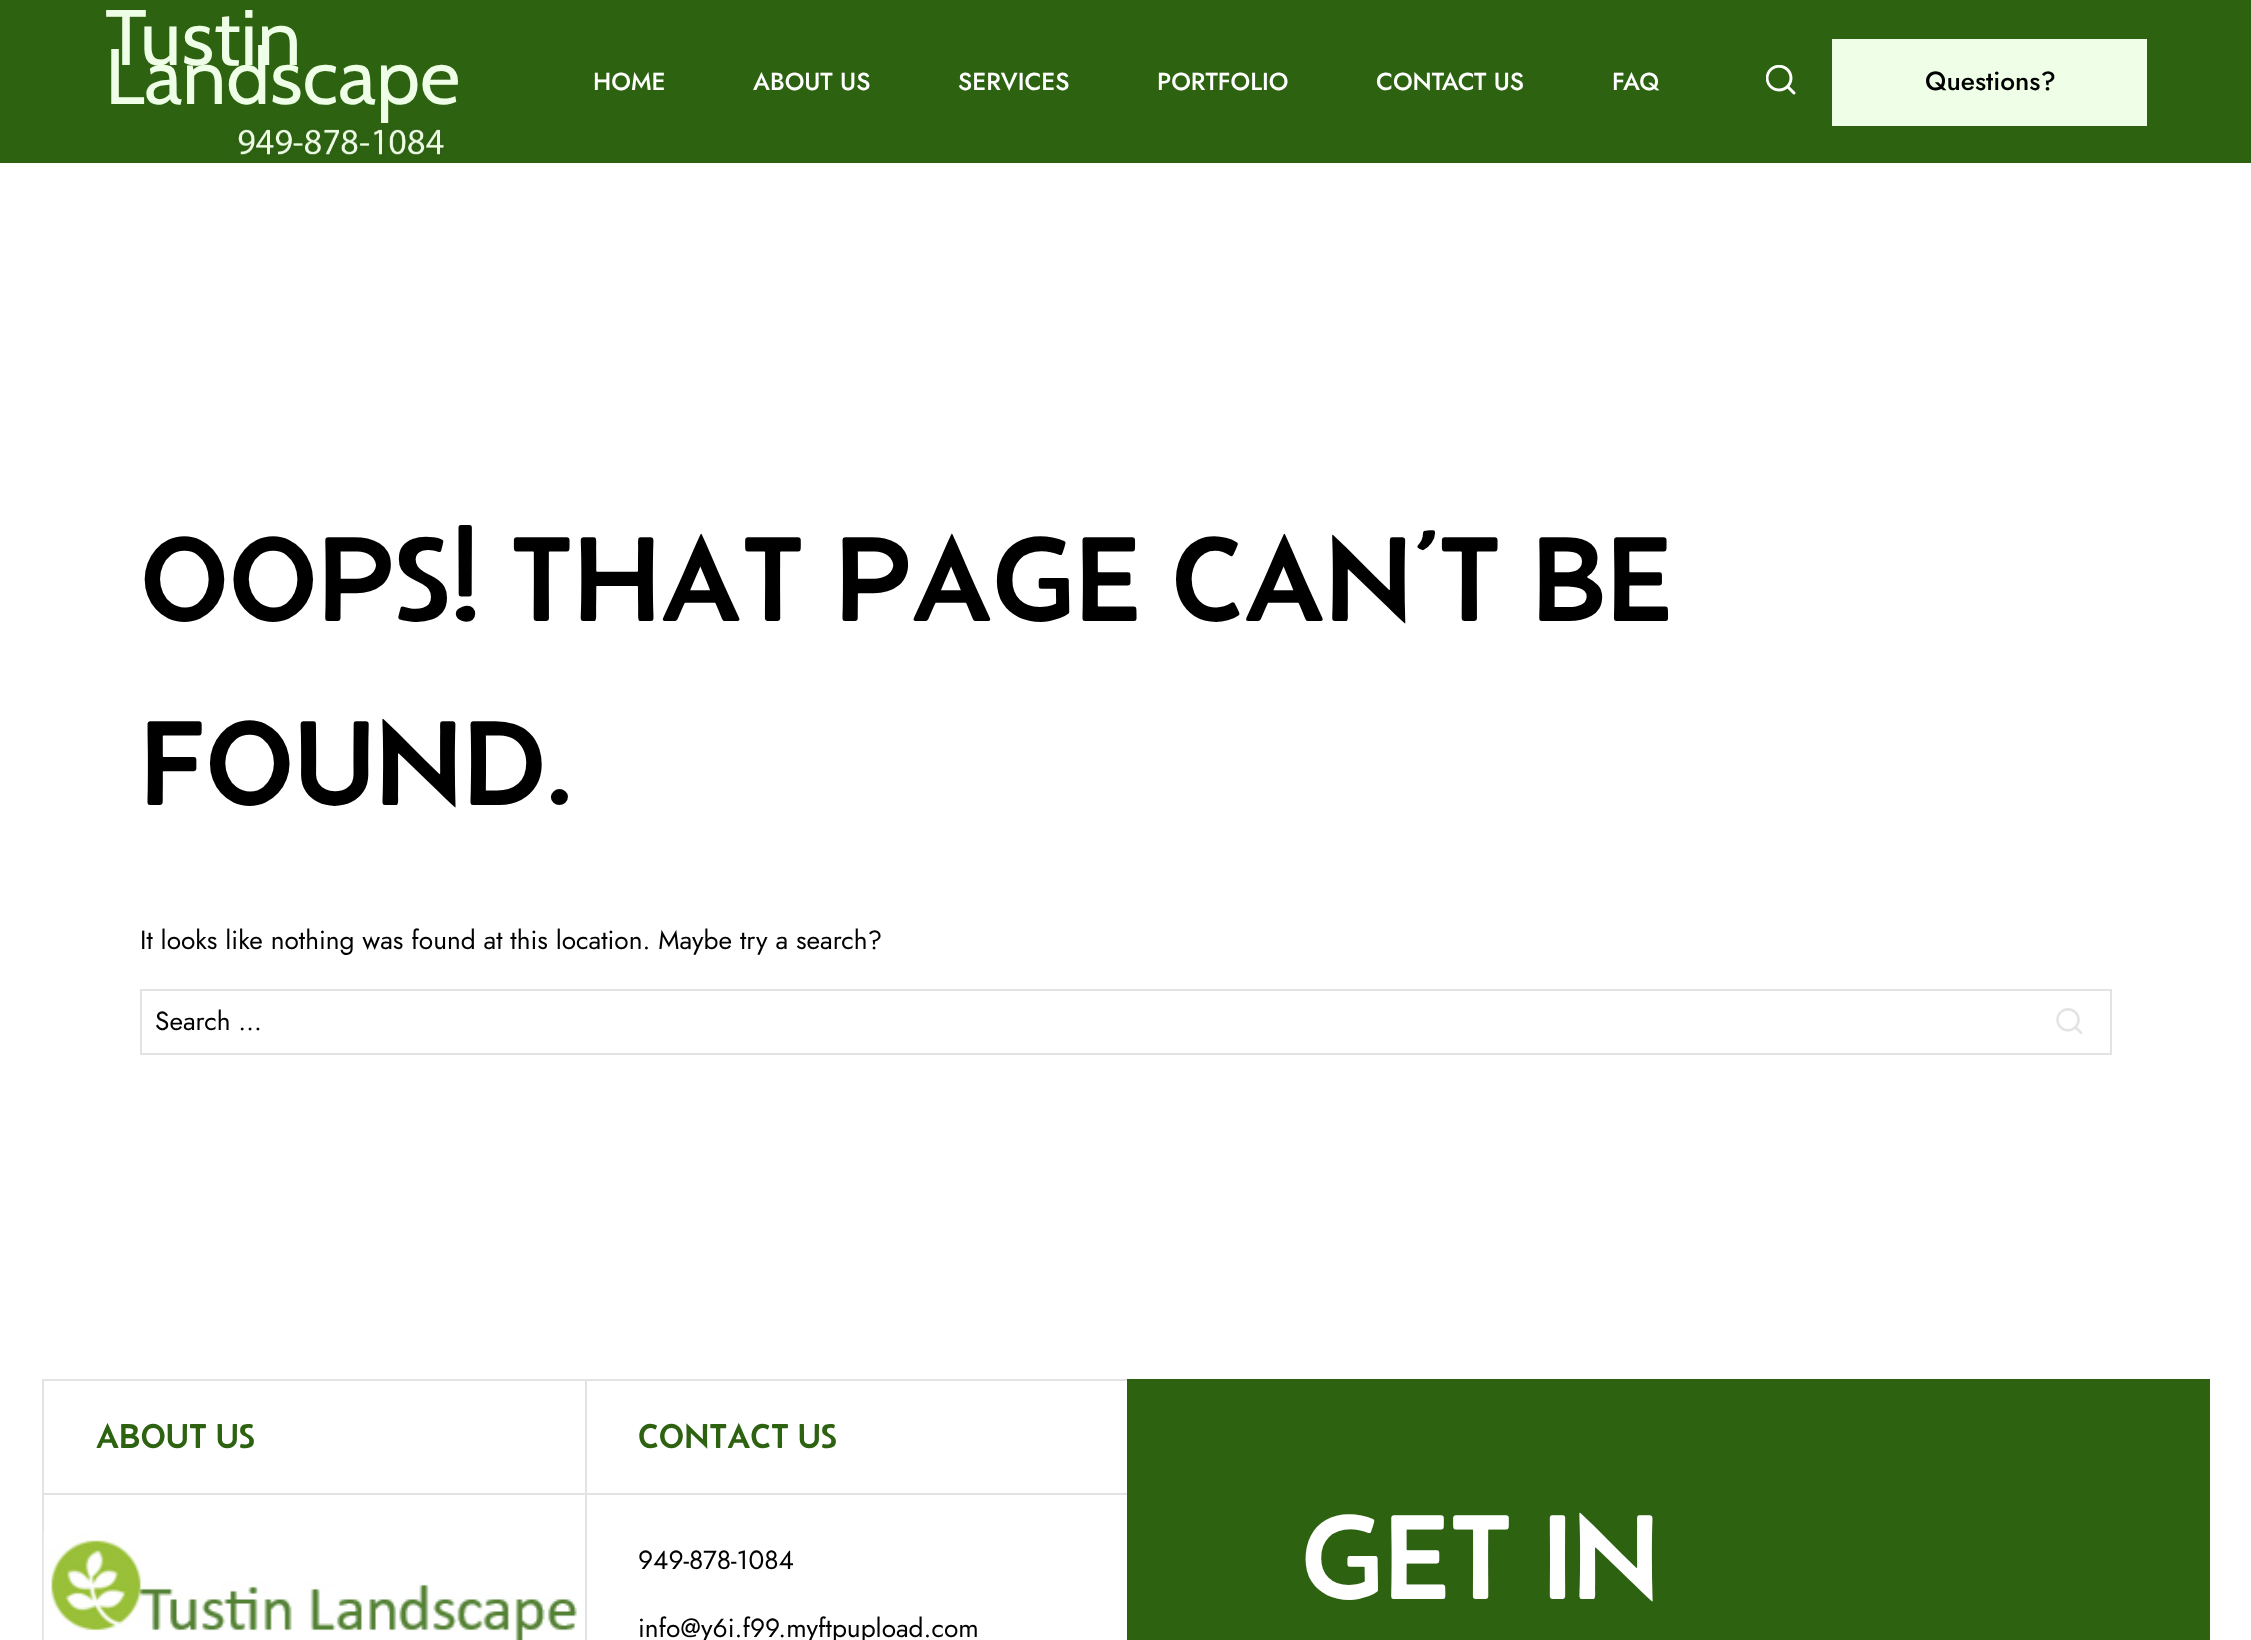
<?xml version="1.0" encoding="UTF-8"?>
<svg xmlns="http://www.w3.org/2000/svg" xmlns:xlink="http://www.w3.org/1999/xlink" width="2251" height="1640">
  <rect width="100%" height="100%" fill="#ffffff" />
  <rect width="2251" height="163" fill="#2d6211" />
  <image x="236" y="127" width="211" height="30" xlink:href="image1.png" />
  <image x="1766" y="65" width="30" height="30" xlink:href="image2.png" />
  <rect x="1832" y="39" width="315" height="87" fill="#efffe7" />
  <rect x="141" y="990" width="1970" height="64" fill="none" stroke="#e3e3e3" stroke-width="2" />
  <image x="2056" y="1008" width="27" height="26" xlink:href="image3.png" />
  <rect x="42" y="1379" width="1085" height="2" fill="#e3e3e3" />
  <rect x="42" y="1379" width="2" height="261" fill="#e3e3e3" />
  <rect x="44" y="1493" width="541" height="2" fill="#e3e3e3" />
  <image x="43" y="1533" width="534" height="107" xlink:href="image4.png" />
  <rect x="585" y="1379" width="2" height="261" fill="#e3e3e3" />
  <rect x="586" y="1493" width="541" height="2" fill="#e3e3e3" />
  <rect x="1127" y="1379" width="1083" height="261" fill="#2d6211" />
  <text x="105" y="65" style="font-family: Cabin; font-size: 78.75px; fill: #efffe7">Tustin</text>
  <text x="105" y="104" style="font-family: Cabin; font-size: 78.75px; fill: #efffe7">Landscape</text>
  <text x="593" y="90" style="font-family: Jost; font-size: 24.5px; font-weight: 500; fill: #ffffff">HOME</text>
  <text x="753" y="90" style="font-family: Jost; font-size: 24.5px; font-weight: 500; fill: #ffffff">ABOUT US</text>
  <text x="958" y="90" style="font-family: Jost; font-size: 24.5px; font-weight: 500; fill: #ffffff">SERVICES</text>
  <text x="1157" y="90" style="font-family: Jost; font-size: 24.5px; font-weight: 500; fill: #ffffff">PORTFOLIO</text>
  <text x="1376" y="90" style="font-family: Jost; font-size: 24.5px; font-weight: 500; fill: #ffffff">CONTACT US</text>
  <text x="1612" y="90" style="font-family: Jost; font-size: 24.5px; font-weight: 500; fill: #ffffff">FAQ</text>
  <text x="1925" y="90" style="font-family: Jost; font-size: 26.25px; font-weight: 500; fill: #000000">Questions?</text>
  <text x="140" y="621" style="font-family: Belanosima; font-size: 122.5px; fill: #000000">OOPS! THAT PAGE CAN’T BE</text>
  <text x="140" y="805" style="font-family: Belanosima; font-size: 122.5px; fill: #000000">FOUND.</text>
  <text x="140" y="949" style="font-family: Jost; font-size: 26.25px; fill: #000000">It looks like nothing was found at this location. Maybe try a search?</text>
  <text x="155" y="1030" style="font-family: Jost; font-size: 26.25px; fill: #000000">Search …</text>
  <text x="96" y="1448" style="font-family: Belanosima; font-size: 35px; fill: #2d6211">ABOUT US</text>
  <text x="638" y="1448" style="font-family: Belanosima; font-size: 35px; fill: #2d6211">CONTACT US</text>
  <text x="638" y="1569" style="font-family: Jost; font-size: 26.25px; fill: #000000">949-878-1084</text>
  <text x="638" y="1637" style="font-family: Jost; font-size: 26.25px; fill: #000000">info@y6i.f99.myftpupload.com</text>
  <text x="1301" y="1599" style="font-family: Belanosima; font-size: 122.5px; fill: #ffffff">GET IN</text>
</svg>
